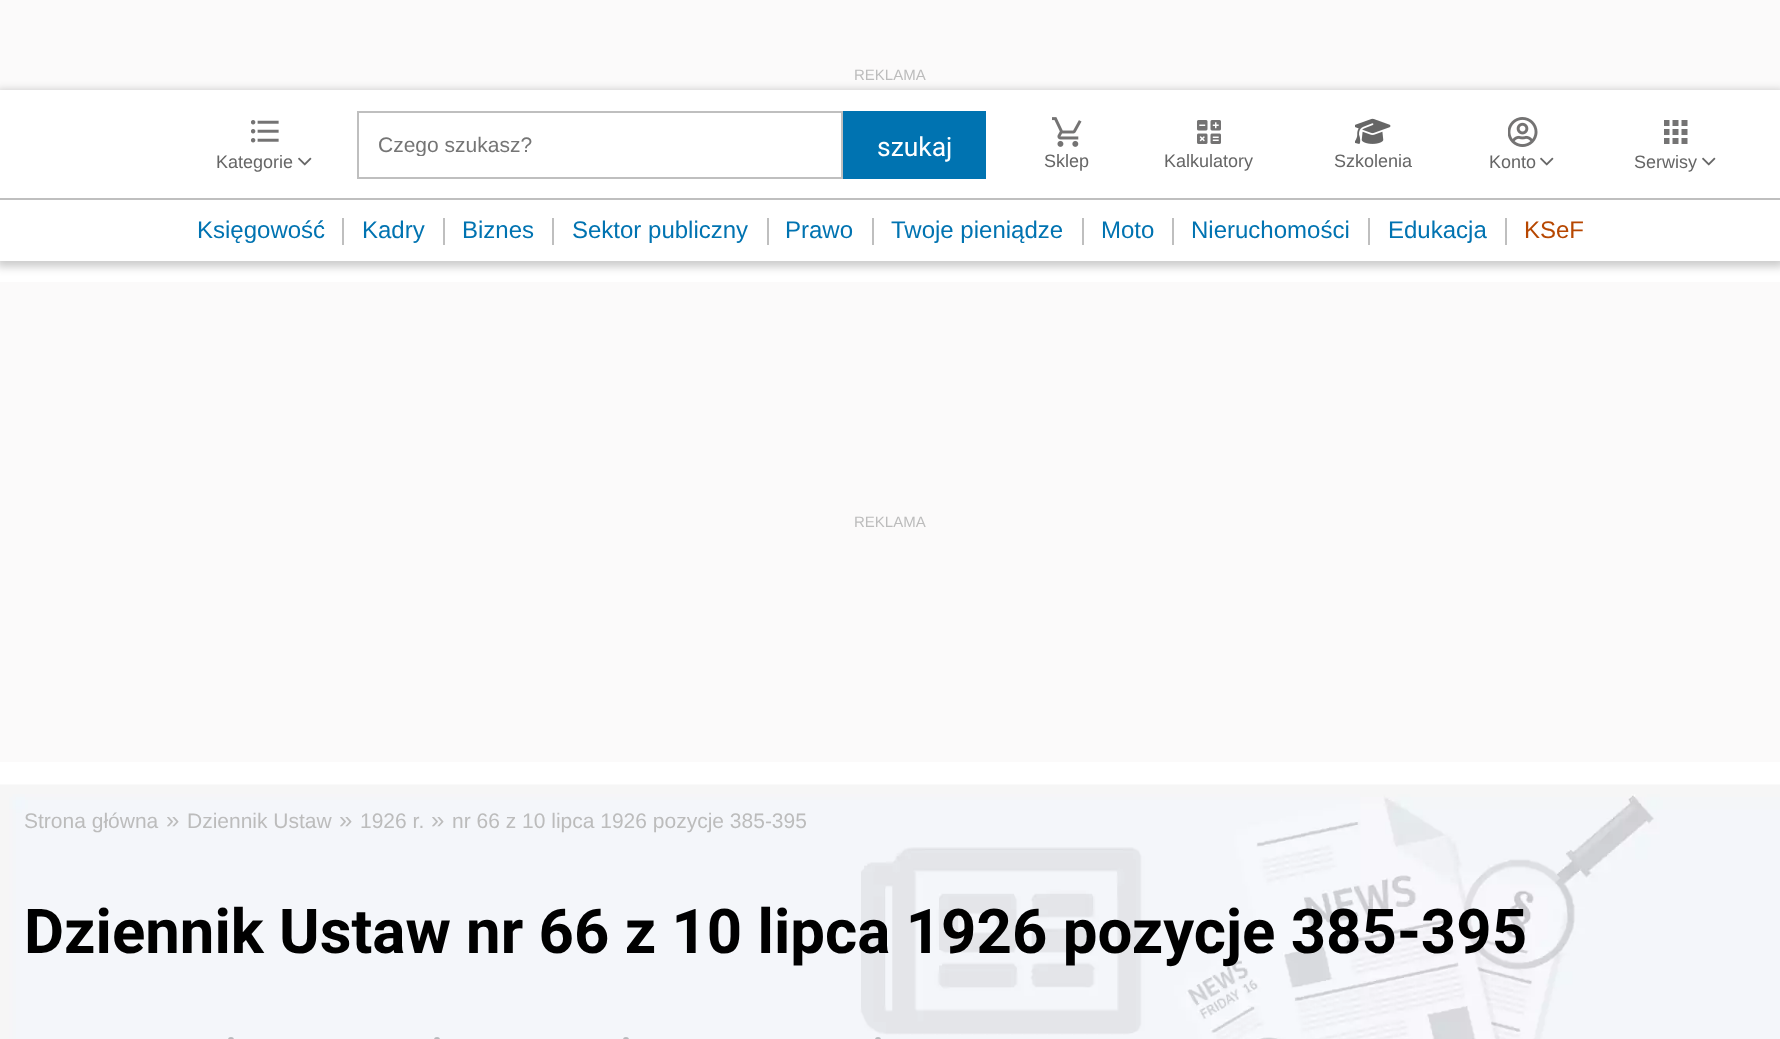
<?xml version="1.0" encoding="UTF-8"?>
<svg xmlns="http://www.w3.org/2000/svg" xmlns:xlink="http://www.w3.org/1999/xlink" width="1780" height="1039">
  <defs>
    <clipPath id="clip1"><path d="M 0 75 h 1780 v 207 h -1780 z m 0 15 h 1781 v 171 h -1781 z" clip-rule="evenodd" /></clipPath>
    <clipPath id="clip2"><rect x="378" y="132" width="411" height="24" /></clipPath>
  </defs>
  <rect width="100%" height="100%" fill="#ffffff" />
  <rect width="1780" height="90" fill="#fbfafa" />
  <g clip-path="url(#clip1)">
    <rect x="-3" y="90" width="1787" height="177" fill="#000000" fill-opacity="0.2" filter="blur(4.5px)" />
  </g>
  <image x="251" y="120" width="28" height="23" xlink:href="image1.png" />
  <image x="298" y="157" width="14" height="9" xlink:href="image2.png" />
  <rect x="358" y="112" width="484" height="66" fill="none" stroke="#bfbfbf" stroke-width="2" />
  <rect x="843" y="111" width="143" height="68" fill="#0073b1" />
  <image x="1052" y="117" width="30" height="30" xlink:href="image3.png" />
  <image x="1197" y="120" width="24" height="24" xlink:href="image4.png" />
  <image x="1355" y="118" width="36" height="26" xlink:href="image5.png" />
  <image x="1508" y="117" width="30" height="30" xlink:href="image6.png" />
  <image x="1540" y="157" width="14" height="9" xlink:href="image2.png" />
  <image x="1664" y="120" width="24" height="24" xlink:href="image7.png" />
  <image x="1702" y="157" width="14" height="9" xlink:href="image2.png" />
  <rect y="198" width="1780" height="2" fill="#bfbfbf" />
  <rect x="342" y="218" width="2" height="27" fill="#bfbfbf" />
  <rect x="443" y="218" width="2" height="27" fill="#bfbfbf" />
  <rect x="552" y="218" width="2" height="27" fill="#bfbfbf" />
  <rect x="767" y="218" width="2" height="27" fill="#bfbfbf" />
  <rect x="872" y="218" width="2" height="27" fill="#bfbfbf" />
  <rect x="1082" y="218" width="2" height="27" fill="#bfbfbf" />
  <rect x="1172" y="218" width="2" height="27" fill="#bfbfbf" />
  <rect x="1368" y="218" width="2" height="27" fill="#bfbfbf" />
  <rect x="1505" y="218" width="2" height="27" fill="#bfbfbf" />
  <rect y="282" width="1780" height="480" fill="#fbfafa" />
  <image x="0" y="784" width="1780" height="255" xlink:href="image8.png" />
  <rect x="228" y="1037" width="6" height="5" rx="3" fill="#b7b9bc" />
  <rect x="434" y="1037" width="6" height="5" rx="3" fill="#b7b9bc" />
  <rect x="623" y="1037" width="6" height="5" rx="3" fill="#b7b9bc" />
  <rect x="875" y="1037" width="6" height="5" rx="3" fill="#b7b9bc" />
  <text x="854" y="80" style="font-family: Liberation Sans; font-size: 15px; fill: #bcbcbc">REKLAMA</text>
  <text x="216" y="168" style="font-family: Liberation Sans; font-size: 18px; fill: #666666">Kategorie</text>
  <g clip-path="url(#clip2)">
    <text x="378" y="152" style="font-family: Liberation Sans; font-size: 21px; fill: #757575">Czego szukasz?</text>
  </g>
  <text x="877" y="156" style="font-family: Roboto; font-size: 27px; fill: #ffffff">szukaj</text>
  <text x="1044" y="167" style="font-family: Liberation Sans; font-size: 18px; fill: #666666">Sklep</text>
  <text x="1164" y="167" style="font-family: Liberation Sans; font-size: 18px; fill: #666666">Kalkulatory</text>
  <text x="1334" y="167" style="font-family: Liberation Sans; font-size: 18px; fill: #666666">Szkolenia</text>
  <text x="1489" y="168" style="font-family: Liberation Sans; font-size: 18px; fill: #666666">Konto</text>
  <text x="1634" y="168" style="font-family: Liberation Sans; font-size: 18px; fill: #666666">Serwisy</text>
  <text x="197" y="238" style="font-family: Liberation Sans; font-size: 24px; fill: #0073b1">Księgowość</text>
  <text x="362" y="238" style="font-family: Liberation Sans; font-size: 24px; fill: #0073b1">Kadry</text>
  <text x="462" y="238" style="font-family: Liberation Sans; font-size: 24px; fill: #0073b1">Biznes</text>
  <text x="572" y="238" style="font-family: Liberation Sans; font-size: 24px; fill: #0073b1">Sektor publiczny</text>
  <text x="785" y="238" style="font-family: Liberation Sans; font-size: 24px; fill: #0073b1">Prawo</text>
  <text x="891" y="238" style="font-family: Liberation Sans; font-size: 24px; fill: #0073b1">Twoje pieniądze</text>
  <text x="1101" y="238" style="font-family: Liberation Sans; font-size: 24px; fill: #0073b1">Moto</text>
  <text x="1191" y="238" style="font-family: Liberation Sans; font-size: 24px; fill: #0073b1">Nieruchomości</text>
  <text x="1388" y="238" style="font-family: Liberation Sans; font-size: 24px; fill: #0073b1">Edukacja</text>
  <text x="1524" y="238" style="font-family: Liberation Sans; font-size: 24px; fill: #b74701">KSeF</text>
  <text x="854" y="527" style="font-family: Liberation Sans; font-size: 15px; fill: #bcbcbc">REKLAMA</text>
  <text x="24" y="828" style="font-family: Liberation Sans; font-size: 21px; fill: #bcbcbc">Strona główna</text>
  <text x="166" y="828" style="font-family: Liberation Sans; font-size: 24px; fill: #bcbcbc">»</text>
  <text x="187" y="828" style="font-family: Liberation Sans; font-size: 21px; fill: #bcbcbc">Dziennik Ustaw</text>
  <text x="339" y="828" style="font-family: Liberation Sans; font-size: 24px; fill: #bcbcbc">»</text>
  <text x="360" y="828" style="font-family: Liberation Sans; font-size: 21px; fill: #bcbcbc">1926 r.</text>
  <text x="431" y="828" style="font-family: Liberation Sans; font-size: 24px; fill: #bcbcbc">»</text>
  <text x="452" y="828" style="font-family: Liberation Sans; font-size: 21px; fill: #bcbcbc">nr 66 z 10 lipca 1926 pozycje 385-395</text>
  <text x="24" y="953" style="font-family: Roboto; font-size: 63px; font-weight: bold; fill: #000000">Dziennik Ustaw nr 66 z 10 lipca 1926 pozycje 385-395</text>
</svg>
